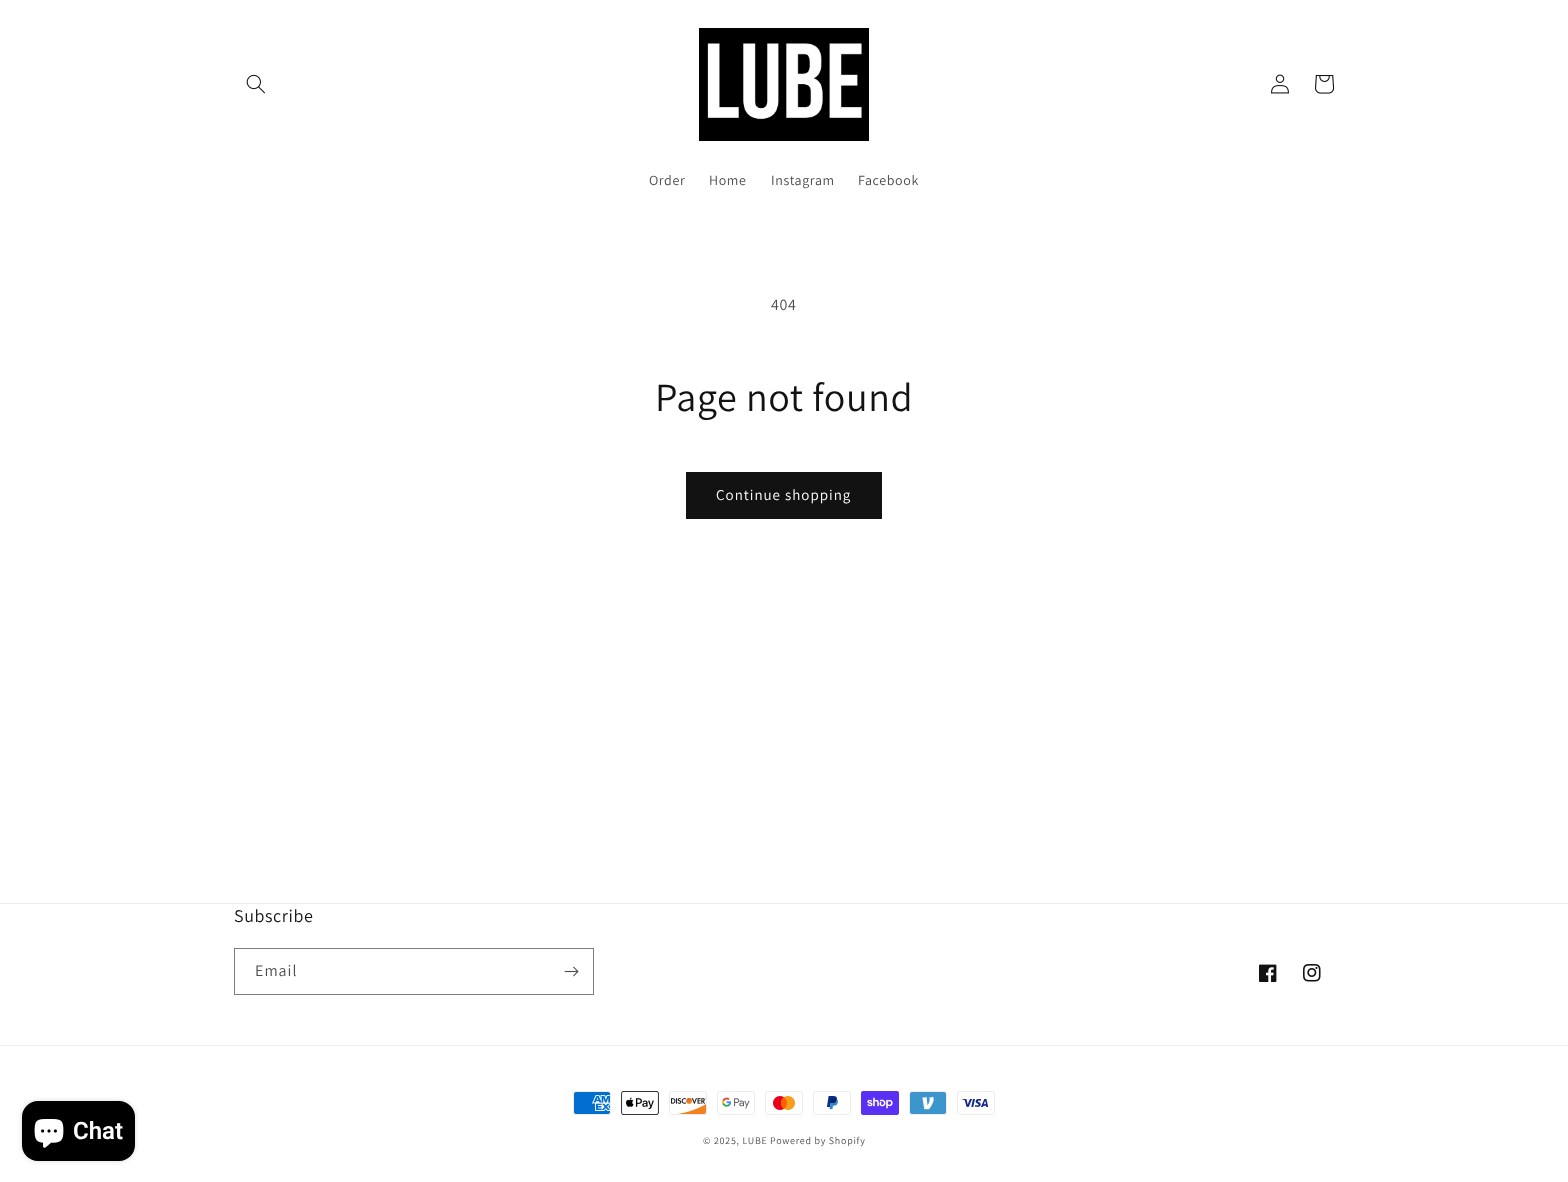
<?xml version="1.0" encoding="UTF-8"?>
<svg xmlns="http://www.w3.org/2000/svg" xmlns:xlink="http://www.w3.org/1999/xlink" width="1568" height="1182">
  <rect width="100%" height="100%" fill="#ffffff" />
  <image x="246" y="74" width="19" height="20" xlink:href="image1.png" />
  <image x="699" y="28" width="170" height="113" xlink:href="image2.png" />
  <image x="1271" y="74" width="18" height="20" xlink:href="image3.png" />
  <image x="1315" y="75" width="20" height="19" xlink:href="image4.png" />
  <rect x="686" y="472" width="196" height="47" fill="#121212" />
  <rect x="22" y="1101" width="113" height="60" rx="16" fill="#000000" fill-opacity="0.15" filter="blur(2.5px)" />
  <rect x="22" y="1101" width="113" height="60" rx="16" fill="#000000" />
  <image x="34" y="1119" width="30" height="29" xlink:href="image5.png" />
  <rect y="903" width="1568" height="1" fill="#ececec" />
  <rect x="234.5" y="948.5" width="359" height="46" fill="none" stroke="#7d7d7d" />
  <image x="564" y="966" width="15" height="11" xlink:href="image6.png" />
  <image x="1259" y="964" width="18" height="18" xlink:href="image7.png" />
  <image x="1303" y="964" width="18" height="18" xlink:href="image8.png" />
  <rect y="1045" width="1568" height="1" fill="#ececec" />
  <image x="573" y="1091" width="38" height="24" xlink:href="image9.png" />
  <image x="621" y="1091" width="38" height="24" xlink:href="image10.png" />
  <image x="669" y="1091" width="38" height="24" xlink:href="image11.png" />
  <image x="717" y="1091" width="38" height="24" xlink:href="image12.png" />
  <image x="765" y="1091" width="38" height="24" xlink:href="image13.png" />
  <image x="813" y="1091" width="38" height="24" xlink:href="image14.png" />
  <image x="861" y="1091" width="38" height="24" xlink:href="image15.png" />
  <image x="909" y="1091" width="38" height="24" xlink:href="image16.png" />
  <image x="957" y="1091" width="38" height="24" xlink:href="image17.png" />
  <text x="649" y="185" style="font-family: Assistant; font-size: 14px; letter-spacing: 0.6px; fill: #4d4d4d">Order</text>
  <text x="709" y="185" style="font-family: Assistant; font-size: 14px; letter-spacing: 0.6px; fill: #4d4d4d">Home</text>
  <text x="771" y="185" style="font-family: Assistant; font-size: 14px; letter-spacing: 0.6px; fill: #4d4d4d">Instagram</text>
  <text x="858" y="185" style="font-family: Assistant; font-size: 14px; letter-spacing: 0.6px; fill: #4d4d4d">Facebook</text>
  <text x="771" y="310" style="font-family: Assistant; font-size: 16px; letter-spacing: 0.6px; fill: #4d4d4d">404</text>
  <text x="655" y="411" style="font-family: Assistant; font-size: 40px; letter-spacing: 0.6px; fill: #121212">Page not found</text>
  <text x="716" y="500" style="font-family: Assistant; font-size: 15px; letter-spacing: 1px; fill: #ffffff">Continue shopping</text>
  <text x="73" y="1139" style="font-family: Roboto; font-size: 24px; font-weight: 600; fill: #ffffff">Chat</text>
  <text x="234" y="922" style="font-family: Assistant; font-size: 18px; letter-spacing: 0.6px; fill: #121212">Subscribe</text>
  <text x="255" y="976" style="font-family: Assistant; font-size: 16px; letter-spacing: 1px; fill: #4d4d4d">Email</text>
  <text x="703" y="1144" style="font-family: Assistant; font-size: 10px; letter-spacing: 0.75px; fill: #4d4d4d">© 2025, LUBE</text>
  <text x="770" y="1144" style="font-family: Assistant; font-size: 10px; letter-spacing: 0.75px; fill: #4d4d4d">Powered by Shopify</text>
</svg>
